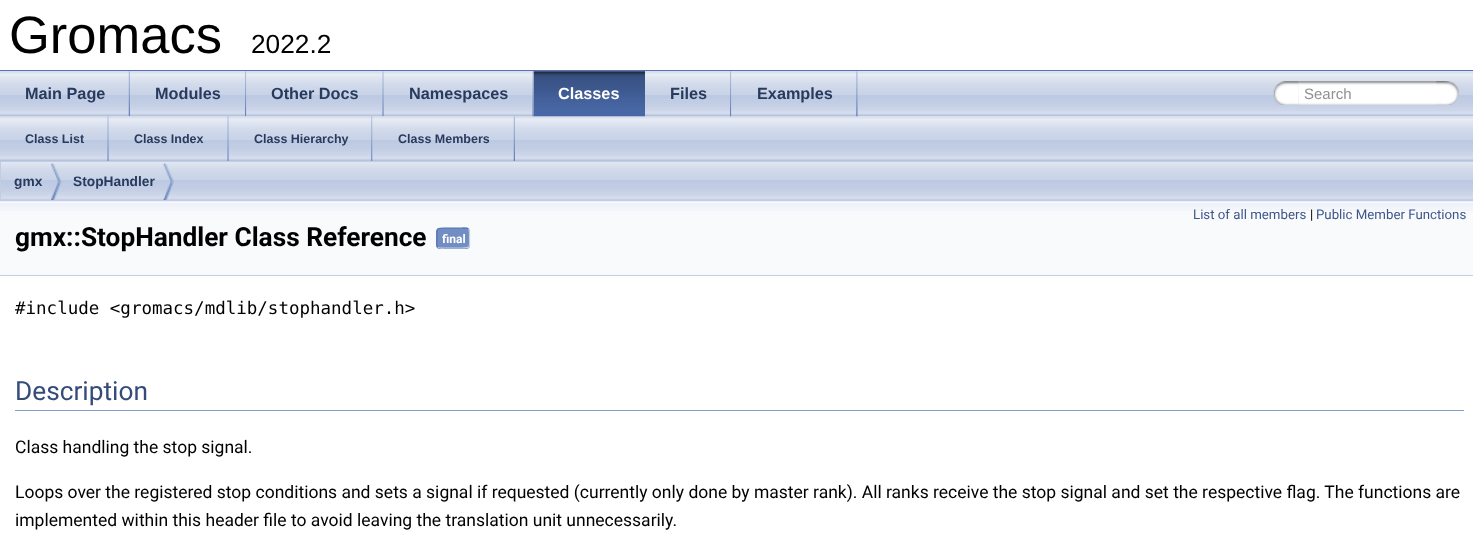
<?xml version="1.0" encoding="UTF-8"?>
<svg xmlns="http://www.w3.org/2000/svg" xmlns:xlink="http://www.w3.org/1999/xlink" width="1473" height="543">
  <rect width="100%" height="100%" fill="#ffffff" />
  <rect y="70" width="1473" height="1" fill="#5373b4" />
  <image x="0" y="71" width="1473" height="46" xlink:href="image1.png" />
  <image x="0" y="116" width="1473" height="45" xlink:href="image17.png" />
  <image x="0" y="71" width="130" height="46" xlink:href="image2.png" />
  <image x="128" y="71" width="2" height="46" xlink:href="image3.png" />
  <image x="130" y="71" width="116" height="46" xlink:href="image4.png" />
  <image x="245" y="71" width="2" height="46" xlink:href="image5.png" />
  <image x="246" y="71" width="138" height="46" xlink:href="image6.png" />
  <image x="382" y="71" width="2" height="46" xlink:href="image7.png" />
  <image x="383" y="71" width="151" height="46" xlink:href="image8.png" />
  <image x="532" y="71" width="2" height="46" xlink:href="image7.png" />
  <image x="533" y="71" width="112" height="46" xlink:href="image9.png" />
  <image x="533" y="71" width="112" height="46" xlink:href="image10.png" />
  <image x="645" y="71" width="86" height="46" xlink:href="image11.png" />
  <image x="730" y="71" width="2" height="46" xlink:href="image5.png" />
  <image x="731" y="71" width="127" height="46" xlink:href="image12.png" />
  <image x="856" y="71" width="2" height="46" xlink:href="image13.png" />
  <image x="1273" y="81" width="26" height="24" xlink:href="image14.png" />
  <image x="1298" y="81" width="147" height="24" xlink:href="image15.png" />
  <image x="1436" y="81" width="23" height="24" xlink:href="image16.png" />
  <image x="107" y="116" width="2" height="45" xlink:href="image18.png" />
  <image x="108" y="116" width="121" height="45" xlink:href="image19.png" />
  <image x="227" y="116" width="2" height="45" xlink:href="image20.png" />
  <image x="228" y="116" width="145" height="45" xlink:href="image21.png" />
  <image x="371" y="116" width="2" height="45" xlink:href="image22.png" />
  <image x="372" y="116" width="143" height="45" xlink:href="image23.png" />
  <image x="513" y="116" width="2" height="45" xlink:href="image24.png" />
  <rect y="201" width="1473" height="74" fill="#f9fafc" />
  <image x="0" y="201" width="1473" height="10" xlink:href="image28.png" />
  <image x="0" y="162" width="1473" height="40" xlink:href="image25.png" />
  <rect x="0.5" y="161.5" width="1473" height="39" fill="none" stroke="#c2cde4" />
  <image x="51" y="163" width="11" height="37" xlink:href="image26.png" />
  <image x="163" y="163" width="11" height="37" xlink:href="image27.png" />
  <rect y="275" width="1473" height="1" fill="#c4cfe5" />
  <rect x="436" y="228" width="34" height="21" rx="4" fill="#728dc1" />
  <path d="M 468.5 229 c 1.5 2 1 7 1 9 c 0 9.5 1.5 10 -7.5 10 h -17.5 c -2 0 -5 1 -6.5 -1" fill="none" stroke="#c4cfe5" stroke-width="1.2" />
  <path d="M 438 247 c -2 -1.5 -1 -7 -1 -9 c 0 -9 -1.5 -10 7.5 -10 h 17.5 c 1.5 0 5 -0.5 6.5 1" fill="none" stroke="#5373b4" stroke-width="1.2" />
  <rect x="15" y="410" width="1449" height="1" fill="#879ecb" />
  <text x="9" y="53" style="font-family: Liberation Sans; font-size: 52.5px; fill: #000000">Gromacs</text>
  <text x="251" y="53" style="font-family: Liberation Sans; font-size: 26.25px; fill: #000000">2022.2</text>
  <text x="25" y="99" style="font-family: Liberation Sans; font-size: 16.25px; font-weight: bold; fill: #283a5d">Main Page</text>
  <text x="155" y="99" style="font-family: Liberation Sans; font-size: 16.25px; font-weight: bold; fill: #283a5d">Modules</text>
  <text x="271" y="99" style="font-family: Liberation Sans; font-size: 16.25px; font-weight: bold; fill: #283a5d">Other Docs</text>
  <text x="409" y="99" style="font-family: Liberation Sans; font-size: 16.25px; font-weight: bold; fill: #283a5d">Namespaces</text>
  <text x="558" y="99" style="font-family: Liberation Sans; font-size: 16.25px; font-weight: bold; fill: #ffffff">Classes</text>
  <text x="670" y="99" style="font-family: Liberation Sans; font-size: 16.25px; font-weight: bold; fill: #283a5d">Files</text>
  <text x="757" y="99" style="font-family: Liberation Sans; font-size: 16.25px; font-weight: bold; fill: #283a5d">Examples</text>
  <text x="1304" y="99" style="font-family: Liberation Sans; font-size: 15px; fill: #909090">Search</text>
  <text x="25" y="143" style="font-family: Liberation Sans; font-size: 12.5px; font-weight: bold; fill: #283a5d">Class List</text>
  <text x="134" y="143" style="font-family: Liberation Sans; font-size: 12.5px; font-weight: bold; fill: #283a5d">Class Index</text>
  <text x="254" y="143" style="font-family: Liberation Sans; font-size: 12.5px; font-weight: bold; fill: #283a5d">Class Hierarchy</text>
  <text x="398" y="143" style="font-family: Liberation Sans; font-size: 12.5px; font-weight: bold; fill: #283a5d">Class Members</text>
  <text x="14" y="186" style="font-family: Liberation Sans; font-size: 13.75px; font-weight: bold; fill: #283a5d">gmx</text>
  <text x="73" y="186" style="font-family: Liberation Sans; font-size: 13.75px; font-weight: bold; fill: #283a5d">StopHandler</text>
  <text x="1193" y="219" style="font-family: Roboto; font-size: 13.25px; fill: #3d578c">List of all members</text>
  <text x="1310" y="219" style="font-family: Roboto; font-size: 13.25px; fill: #000000">|</text>
  <text x="1316" y="219" style="font-family: Roboto; font-size: 13.25px; fill: #3d578c">Public Member Functions</text>
  <text x="15" y="246" style="font-family: Roboto; font-size: 26.25px; font-weight: bold; fill: #000000">gmx::StopHandler Class Reference</text>
  <text x="442" y="243" style="font-family: Roboto; font-size: 12px; font-weight: bold; fill: #ffffff">final</text>
  <text x="15" y="314" style="font-family: DejaVu Sans Mono; font-size: 17.5px; fill: #000000">#include &lt;gromacs/mdlib/stophandler.h&gt;</text>
  <text x="15" y="400" style="font-family: Roboto; font-size: 26.25px; fill: #354c7b">Description</text>
  <text x="15" y="453" style="font-family: Roboto; font-size: 17.5px; fill: #000000">Class handling the stop signal.</text>
  <text x="15" y="498" style="font-family: Roboto; font-size: 17.5px; fill: #000000">Loops over the registered stop conditions and sets a signal if requested (currently only done by master rank). All ranks receive the stop signal and set the respective flag. The functions are</text>
  <text x="15" y="526" style="font-family: Roboto; font-size: 17.5px; fill: #000000">implemented within this header file to avoid leaving the translation unit unnecessarily.</text>
</svg>
